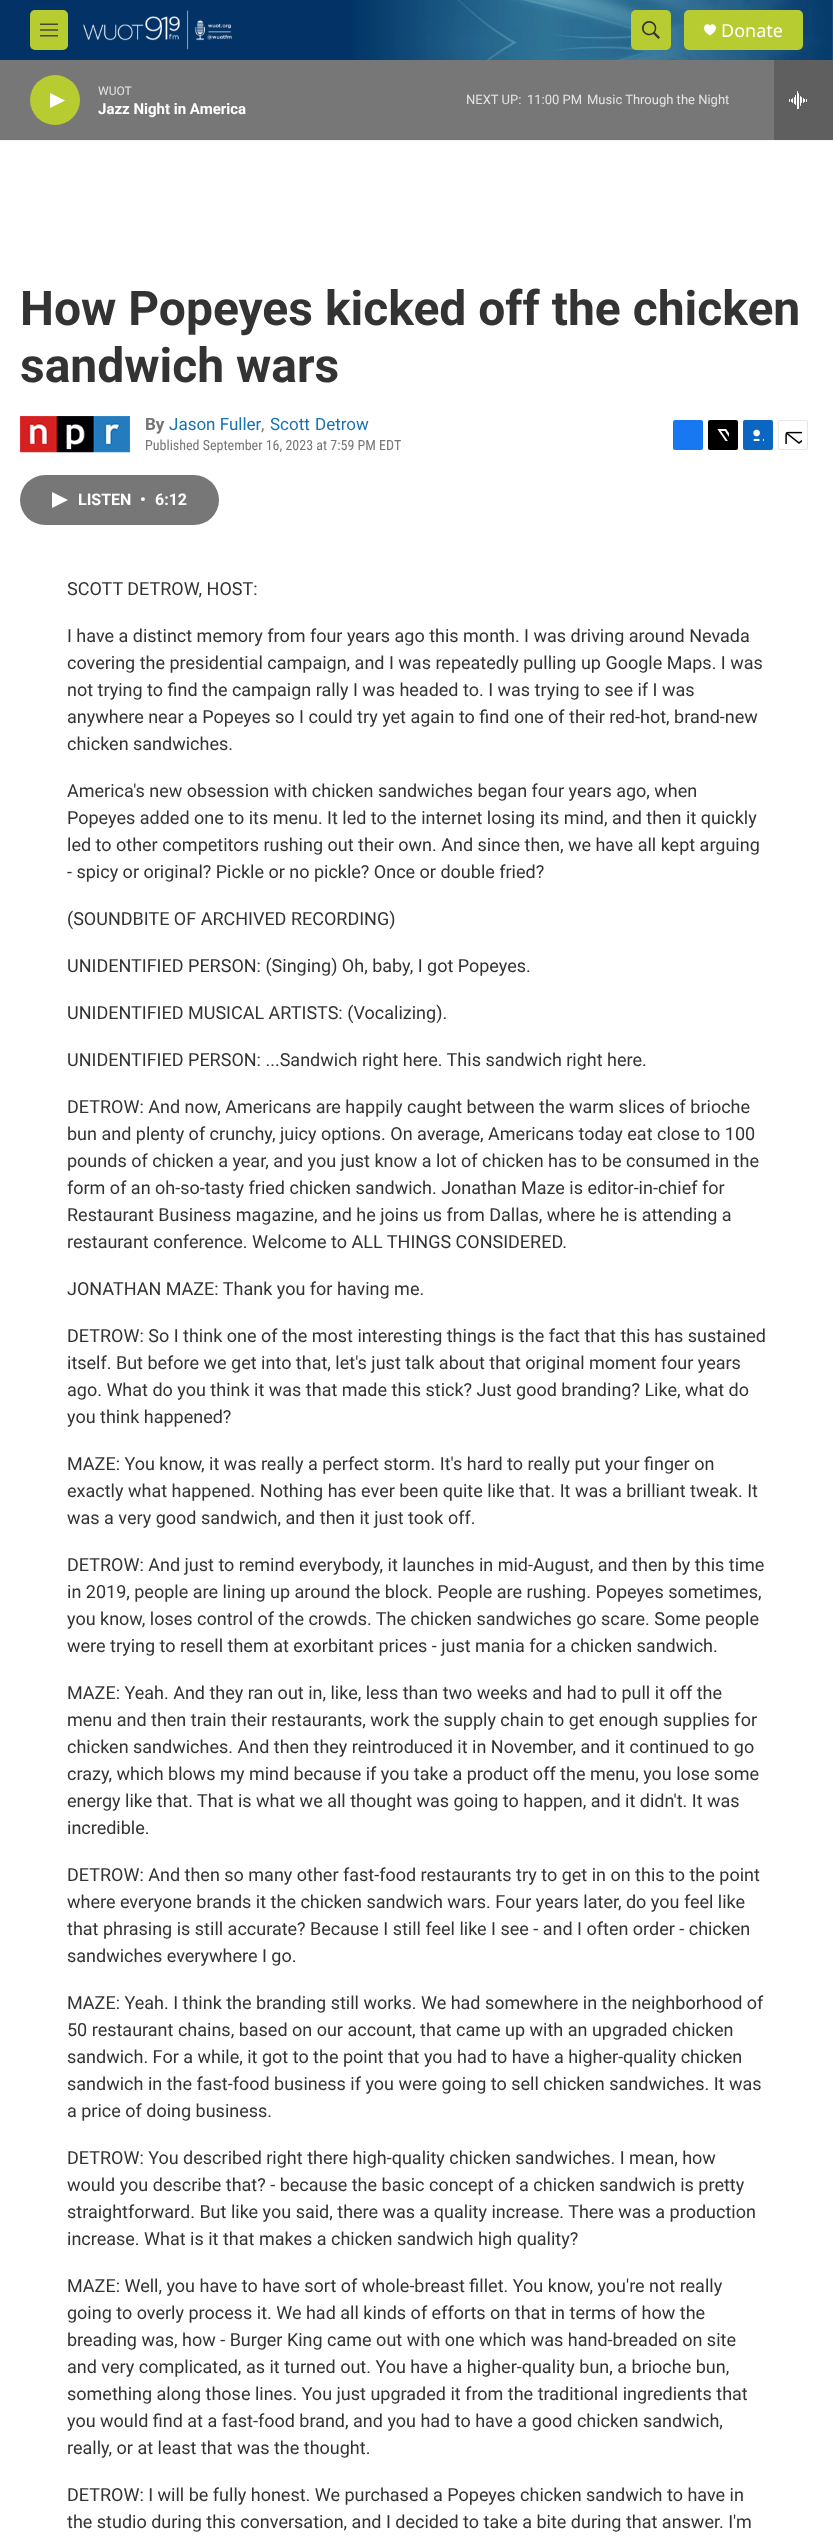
<?xml version="1.0" encoding="UTF-8"?>
<svg xmlns="http://www.w3.org/2000/svg" xmlns:xlink="http://www.w3.org/1999/xlink" width="833" height="2540">
  <rect width="100%" height="100%" fill="#ffffff" />
  <rect y="140" width="833" height="1" fill="#f5f5f5" />
  <image x="0" y="0" width="833" height="60" xlink:href="image1.png" />
  <rect x="30" y="10" width="38" height="40" rx="5" fill="#b7cc31" />
  <image x="40" y="23" width="18" height="14" xlink:href="image2.png" />
  <image x="83" y="10" width="149" height="40" xlink:href="image3.png" />
  <rect x="631" y="10" width="40" height="40" rx="5" fill="#b7cc31" />
  <image x="642" y="21" width="18" height="18" xlink:href="image4.png" />
  <rect x="684" y="10" width="119" height="40" rx="5" fill="#b7cc31" />
  <path d="M 710 26 c -2 -5 -12.5 2 0 9.5 c 12.5 -7.5 2 -14.5 0 -9.5 z" fill="#ffffff" />
  <rect y="60" width="774" height="80" fill="#777777" />
  <circle cx="55" cy="100" r="25" fill="#b7cc31" />
  <path d="M 50 93 l 15 7.5 l -15 7.5 z" fill="#ffffff" />
  <rect x="774" y="60" width="59" height="80" fill="#5f5f5f" />
  <image x="789" y="91" width="18" height="18" xlink:href="image5.png" />
  <image x="20" y="416" width="110" height="37" xlink:href="image6.png" />
  <rect x="673" y="420" width="30" height="30" rx="2" fill="#1778f2" />
  <rect x="708" y="420" width="30" height="30" rx="2" fill="#000000" />
  <image x="717" y="429" width="12" height="12" xlink:href="image7.png" />
  <rect x="743" y="420" width="30" height="30" rx="2" fill="#0a66c1" />
  <image x="753" y="429" width="11" height="12" xlink:href="image8.png" />
  <rect x="778.5" y="420.5" width="29" height="29" rx="1.5" fill="none" stroke="#e6e6e6" />
  <image x="785" y="431" width="17" height="13" xlink:href="image9.png" />
  <rect x="20" y="475" width="199" height="50" rx="25" fill="#777777" />
  <path d="M 52 492 l 16 8 l -16 8 z" fill="#ffffff" />
  <text x="721" y="37" style="font-family: Noto Sans; font-size: 18px; fill: #ffffff">Donate</text>
  <text x="98" y="95" style="font-family: 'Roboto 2'; font-size: 12px; fill: #e4e4e4">WUOT</text>
  <text x="98" y="114" style="font-family: 'Roboto 2'; font-size: 15px; font-weight: bold; fill: #ffffff">Jazz Night in America</text>
  <text x="466" y="104" style="font-family: 'Roboto 2'; font-size: 13px; fill: #e4e4e4">NEXT UP:</text>
  <text x="527" y="104" style="font-family: 'Roboto 2'; font-size: 13px; fill: #e4e4e4">11:00 PM</text>
  <text x="587" y="104" style="font-family: 'Roboto 2'; font-size: 13px; fill: #e4e4e4">Music Through the Night</text>
  <text x="20" y="325" style="font-family: Roboto; font-size: 48px; font-weight: bold; fill: #333333">How Popeyes kicked off the chicken</text>
  <text x="20" y="382" style="font-family: Roboto; font-size: 48px; font-weight: bold; fill: #333333">sandwich wars</text>
  <text x="145" y="430" style="font-family: Roboto; font-size: 17px; font-weight: bold; fill: #767676">By</text>
  <text x="169" y="430" style="font-family: Roboto; font-size: 17px; fill: #1772b0">Jason Fuller</text>
  <text x="261" y="430" style="font-family: Roboto; font-size: 17px; fill: #767676">,</text>
  <text x="270" y="430" word-spacing="1" style="font-family: Roboto; font-size: 17px; fill: #1772b0">Scott Detrow</text>
  <text x="145" y="450" style="font-family: Roboto Condensed; font-size: 14px; fill: #767676">Published September 16, 2023 at 7:59 PM EDT</text>
  <text x="78" y="505" style="font-family: 'Roboto 2'; font-size: 16px; font-weight: bold; fill: #ffffff">LISTEN</text>
  <text x="140" y="505" style="font-family: 'Roboto 2'; font-size: 16px; font-weight: bold; fill: #ffffff">•</text>
  <text x="155" y="505" style="font-family: 'Roboto 2'; font-size: 16px; font-weight: bold; fill: #ffffff">6:12</text>
  <text x="67" y="595" style="font-family: 'Roboto 2'; font-size: 18px; fill: #333333">SCOTT DETROW, HOST:</text>
  <text x="67" y="642" style="font-family: 'Roboto 2'; font-size: 18px; fill: #333333">I have a distinct memory from four years ago this month. I was driving around Nevada</text>
  <text x="67" y="669" style="font-family: 'Roboto 2'; font-size: 18px; fill: #333333">covering the presidential campaign, and I was repeatedly pulling up Google Maps. I was</text>
  <text x="67" y="696" style="font-family: 'Roboto 2'; font-size: 18px; fill: #333333">not trying to find the campaign rally I was headed to. I was trying to see if I was</text>
  <text x="67" y="723" style="font-family: 'Roboto 2'; font-size: 18px; fill: #333333">anywhere near a Popeyes so I could try yet again to find one of their red-hot, brand-new</text>
  <text x="67" y="750" style="font-family: 'Roboto 2'; font-size: 18px; fill: #333333">chicken sandwiches.</text>
  <text x="67" y="797" style="font-family: 'Roboto 2'; font-size: 18px; fill: #333333">America's new obsession with chicken sandwiches began four years ago, when</text>
  <text x="67" y="824" style="font-family: 'Roboto 2'; font-size: 18px; fill: #333333">Popeyes added one to its menu. It led to the internet losing its mind, and then it quickly</text>
  <text x="67" y="851" style="font-family: 'Roboto 2'; font-size: 18px; fill: #333333">led to other competitors rushing out their own. And since then, we have all kept arguing</text>
  <text x="67" y="878" style="font-family: 'Roboto 2'; font-size: 18px; fill: #333333">- spicy or original? Pickle or no pickle? Once or double fried?</text>
  <text x="67" y="925" style="font-family: 'Roboto 2'; font-size: 18px; fill: #333333">(SOUNDBITE OF ARCHIVED RECORDING)</text>
  <text x="67" y="972" style="font-family: 'Roboto 2'; font-size: 18px; fill: #333333">UNIDENTIFIED PERSON: (Singing) Oh, baby, I got Popeyes.</text>
  <text x="67" y="1019" style="font-family: 'Roboto 2'; font-size: 18px; fill: #333333">UNIDENTIFIED MUSICAL ARTISTS: (Vocalizing).</text>
  <text x="67" y="1066" style="font-family: 'Roboto 2'; font-size: 18px; fill: #333333">UNIDENTIFIED PERSON: ...Sandwich right here. This sandwich right here.</text>
  <text x="67" y="1113" style="font-family: 'Roboto 2'; font-size: 18px; fill: #333333">DETROW: And now, Americans are happily caught between the warm slices of brioche</text>
  <text x="67" y="1140" style="font-family: 'Roboto 2'; font-size: 18px; fill: #333333">bun and plenty of crunchy, juicy options. On average, Americans today eat close to 100</text>
  <text x="67" y="1167" style="font-family: 'Roboto 2'; font-size: 18px; fill: #333333">pounds of chicken a year, and you just know a lot of chicken has to be consumed in the</text>
  <text x="67" y="1194" style="font-family: 'Roboto 2'; font-size: 18px; fill: #333333">form of an oh-so-tasty fried chicken sandwich. Jonathan Maze is editor-in-chief for</text>
  <text x="67" y="1221" style="font-family: 'Roboto 2'; font-size: 18px; fill: #333333">Restaurant Business magazine, and he joins us from Dallas, where he is attending a</text>
  <text x="67" y="1248" style="font-family: 'Roboto 2'; font-size: 18px; fill: #333333">restaurant conference. Welcome to ALL THINGS CONSIDERED.</text>
  <text x="67" y="1295" style="font-family: 'Roboto 2'; font-size: 18px; fill: #333333">JONATHAN MAZE: Thank you for having me.</text>
  <text x="67" y="1342" style="font-family: 'Roboto 2'; font-size: 18px; fill: #333333">DETROW: So I think one of the most interesting things is the fact that this has sustained</text>
  <text x="67" y="1369" style="font-family: 'Roboto 2'; font-size: 18px; fill: #333333">itself. But before we get into that, let's just talk about that original moment four years</text>
  <text x="67" y="1396" style="font-family: 'Roboto 2'; font-size: 18px; fill: #333333">ago. What do you think it was that made this stick? Just good branding? Like, what do</text>
  <text x="67" y="1423" style="font-family: 'Roboto 2'; font-size: 18px; fill: #333333">you think happened?</text>
  <text x="67" y="1470" style="font-family: 'Roboto 2'; font-size: 18px; fill: #333333">MAZE: You know, it was really a perfect storm. It's hard to really put your finger on</text>
  <text x="67" y="1497" style="font-family: 'Roboto 2'; font-size: 18px; fill: #333333">exactly what happened. Nothing has ever been quite like that. It was a brilliant tweak. It</text>
  <text x="67" y="1524" style="font-family: 'Roboto 2'; font-size: 18px; fill: #333333">was a very good sandwich, and then it just took off.</text>
  <text x="67" y="1571" style="font-family: 'Roboto 2'; font-size: 18px; fill: #333333">DETROW: And just to remind everybody, it launches in mid-August, and then by this time</text>
  <text x="67" y="1598" style="font-family: 'Roboto 2'; font-size: 18px; fill: #333333">in 2019, people are lining up around the block. People are rushing. Popeyes sometimes,</text>
  <text x="67" y="1625" style="font-family: 'Roboto 2'; font-size: 18px; fill: #333333">you know, loses control of the crowds. The chicken sandwiches go scare. Some people</text>
  <text x="67" y="1652" style="font-family: 'Roboto 2'; font-size: 18px; fill: #333333">were trying to resell them at exorbitant prices - just mania for a chicken sandwich.</text>
  <text x="67" y="1699" style="font-family: 'Roboto 2'; font-size: 18px; fill: #333333">MAZE: Yeah. And they ran out in, like, less than two weeks and had to pull it off the</text>
  <text x="67" y="1726" style="font-family: 'Roboto 2'; font-size: 18px; fill: #333333">menu and then train their restaurants, work the supply chain to get enough supplies for</text>
  <text x="67" y="1753" style="font-family: 'Roboto 2'; font-size: 18px; fill: #333333">chicken sandwiches. And then they reintroduced it in November, and it continued to go</text>
  <text x="67" y="1780" style="font-family: 'Roboto 2'; font-size: 18px; fill: #333333">crazy, which blows my mind because if you take a product off the menu, you lose some</text>
  <text x="67" y="1807" style="font-family: 'Roboto 2'; font-size: 18px; fill: #333333">energy like that. That is what we all thought was going to happen, and it didn't. It was</text>
  <text x="67" y="1834" style="font-family: 'Roboto 2'; font-size: 18px; fill: #333333">incredible.</text>
  <text x="67" y="1881" style="font-family: 'Roboto 2'; font-size: 18px; fill: #333333">DETROW: And then so many other fast-food restaurants try to get in on this to the point</text>
  <text x="67" y="1908" style="font-family: 'Roboto 2'; font-size: 18px; fill: #333333">where everyone brands it the chicken sandwich wars. Four years later, do you feel like</text>
  <text x="67" y="1935" style="font-family: 'Roboto 2'; font-size: 18px; fill: #333333">that phrasing is still accurate? Because I still feel like I see - and I often order - chicken</text>
  <text x="67" y="1962" style="font-family: 'Roboto 2'; font-size: 18px; fill: #333333">sandwiches everywhere I go.</text>
  <text x="67" y="2009" style="font-family: 'Roboto 2'; font-size: 18px; fill: #333333">MAZE: Yeah. I think the branding still works. We had somewhere in the neighborhood of</text>
  <text x="67" y="2036" style="font-family: 'Roboto 2'; font-size: 18px; fill: #333333">50 restaurant chains, based on our account, that came up with an upgraded chicken</text>
  <text x="67" y="2063" style="font-family: 'Roboto 2'; font-size: 18px; fill: #333333">sandwich. For a while, it got to the point that you had to have a higher-quality chicken</text>
  <text x="67" y="2090" style="font-family: 'Roboto 2'; font-size: 18px; fill: #333333">sandwich in the fast-food business if you were going to sell chicken sandwiches. It was</text>
  <text x="67" y="2117" style="font-family: 'Roboto 2'; font-size: 18px; fill: #333333">a price of doing business.</text>
  <text x="67" y="2164" style="font-family: 'Roboto 2'; font-size: 18px; fill: #333333">DETROW: You described right there high-quality chicken sandwiches. I mean, how</text>
  <text x="67" y="2191" style="font-family: 'Roboto 2'; font-size: 18px; fill: #333333">would you describe that? - because the basic concept of a chicken sandwich is pretty</text>
  <text x="67" y="2218" style="font-family: 'Roboto 2'; font-size: 18px; fill: #333333">straightforward. But like you said, there was a quality increase. There was a production</text>
  <text x="67" y="2245" style="font-family: 'Roboto 2'; font-size: 18px; fill: #333333">increase. What is it that makes a chicken sandwich high quality?</text>
  <text x="67" y="2292" style="font-family: 'Roboto 2'; font-size: 18px; fill: #333333">MAZE: Well, you have to have sort of whole-breast fillet. You know, you're not really</text>
  <text x="67" y="2319" style="font-family: 'Roboto 2'; font-size: 18px; fill: #333333">going to overly process it. We had all kinds of efforts on that in terms of how the</text>
  <text x="67" y="2346" style="font-family: 'Roboto 2'; font-size: 18px; fill: #333333">breading was, how - Burger King came out with one which was hand-breaded on site</text>
  <text x="67" y="2373" style="font-family: 'Roboto 2'; font-size: 18px; fill: #333333">and very complicated, as it turned out. You have a higher-quality bun, a brioche bun,</text>
  <text x="67" y="2400" style="font-family: 'Roboto 2'; font-size: 18px; fill: #333333">something along those lines. You just upgraded it from the traditional ingredients that</text>
  <text x="67" y="2427" style="font-family: 'Roboto 2'; font-size: 18px; fill: #333333">you would find at a fast-food brand, and you had to have a good chicken sandwich,</text>
  <text x="67" y="2454" style="font-family: 'Roboto 2'; font-size: 18px; fill: #333333">really, or at least that was the thought.</text>
  <text x="67" y="2501" style="font-family: 'Roboto 2'; font-size: 18px; fill: #333333">DETROW: I will be fully honest. We purchased a Popeyes chicken sandwich to have in</text>
  <text x="67" y="2528" style="font-family: 'Roboto 2'; font-size: 18px; fill: #333333">the studio during this conversation, and I decided to take a bite during that answer. I'm</text>
</svg>
